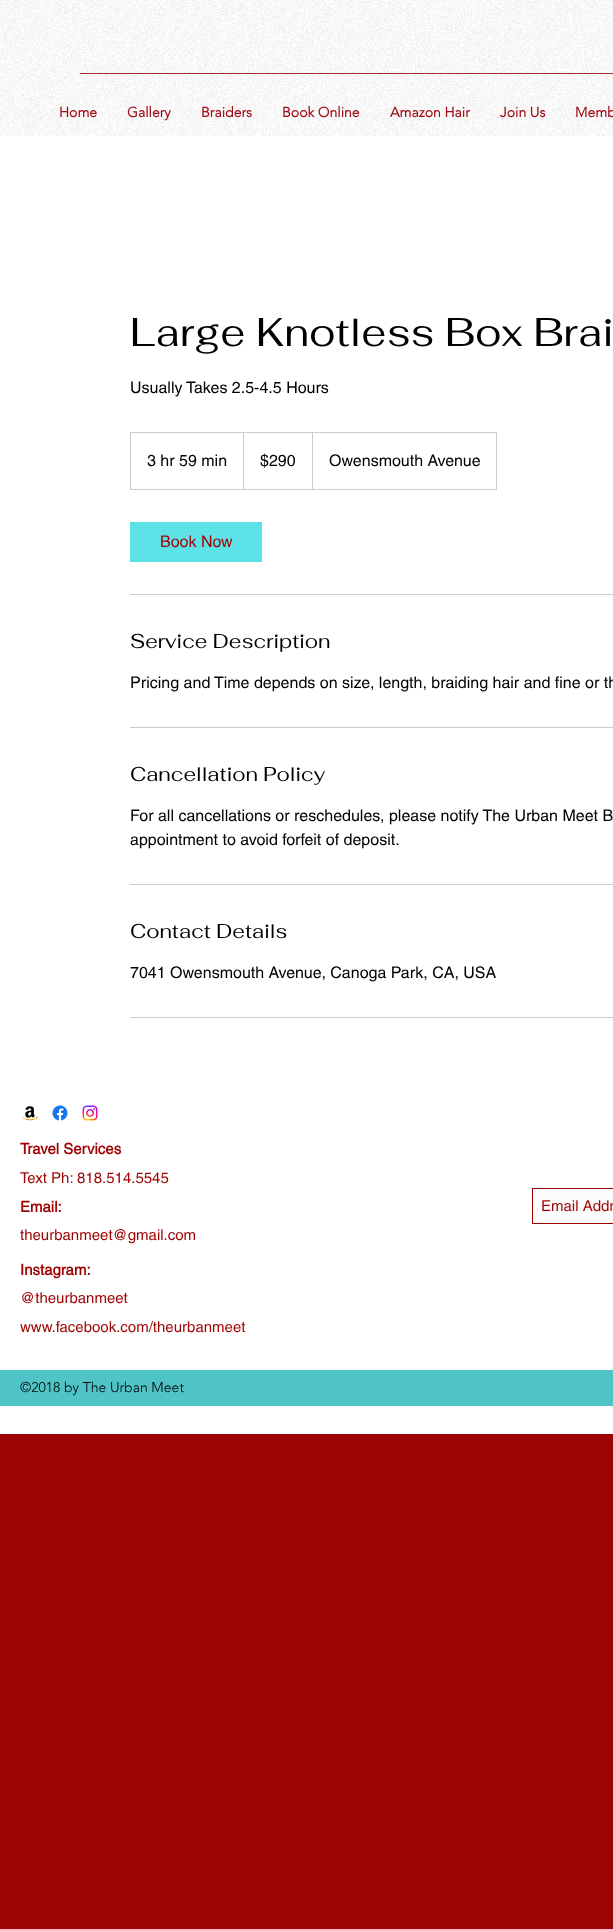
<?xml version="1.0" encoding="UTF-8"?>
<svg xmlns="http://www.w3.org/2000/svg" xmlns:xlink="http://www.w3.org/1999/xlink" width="613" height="1929">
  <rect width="100%" height="100%" fill="#9e0303" />
  <rect width="613" height="1434" fill="#ffffff" />
  <image x="0" y="0" width="613" height="136" xlink:href="image1.png" />
  <rect x="80" y="73" width="533" height="1" fill="#9e0303" fill-opacity="0.85" />
  <rect x="130.5" y="432.5" width="366" height="57" fill="none" stroke="#cccccc" />
  <path d="M 243 489 v -57 l 1 1 v 56 z" fill="#cccccc" />
  <path d="M 312 489 v -57 l 1 1 v 56 z" fill="#cccccc" />
  <rect x="130" y="522" width="132" height="40" fill="#5ce2e7" />
  <rect x="130" y="594" width="483" height="1" fill="#cccccc" />
  <rect x="130" y="727" width="483" height="1" fill="#cccccc" />
  <rect x="130" y="884" width="483" height="1" fill="#cccccc" />
  <rect x="130" y="1017" width="483" height="1" fill="#cccccc" />
  <image x="22" y="1106" width="16" height="15" xlink:href="image2.png" />
  <image x="52" y="1105" width="16" height="16" xlink:href="image3.png" />
  <image x="82" y="1105" width="16" height="16" xlink:href="image4.png" />
  <rect x="532.5" y="1188.5" width="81" height="35" fill="#fcfcfc" stroke="#9e0303" />
  <rect y="1370" width="613" height="36" fill="#50c3c7" />
  <text x="59" y="117" style="font-family: 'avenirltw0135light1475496'; font-size: 14px; font-weight: bold; fill: #a00e16">Home</text>
  <text x="127" y="117" style="font-family: 'avenirltw0135light1475496'; font-size: 14px; font-weight: bold; fill: #a00e16">Gallery</text>
  <text x="201" y="117" style="font-family: 'avenirltw0135light1475496'; font-size: 14px; font-weight: bold; fill: #a00e16">Braiders</text>
  <text x="282" y="117" style="font-family: 'avenirltw0135light1475496'; font-size: 14px; font-weight: bold; fill: #a00e16">Book Online</text>
  <text x="390" y="117" style="font-family: 'avenirltw0135light1475496'; font-size: 14px; font-weight: bold; fill: #a00e16">Amazon Hair</text>
  <text x="500" y="117" style="font-family: 'avenirltw0135light1475496'; font-size: 14px; font-weight: bold; fill: #a00e16">Join Us</text>
  <text x="575" y="117" style="font-family: 'avenirltw0135light1475496'; font-size: 14px; font-weight: bold; fill: #a00e16">Memb</text>
  <text x="130" y="346" style="font-family: Fahkwang; font-size: 40px; fill: #000000">Large Knotless Box Brai</text>
  <text x="130" y="393" style="font-family: helvetica; font-size: 16px; fill: #000000">Usually Takes 2.5-4.5 Hours</text>
  <text x="147" y="466" style="font-family: helvetica; font-size: 16px; fill: #000000">3 hr 59 min</text>
  <text x="260" y="466" style="font-family: helvetica; font-size: 16px; fill: #000000">$290</text>
  <text x="329" y="466" style="font-family: helvetica; font-size: 16px; fill: #000000">Owensmouth Avenue</text>
  <text x="160" y="547" style="font-family: helvetica; font-size: 16px; fill: #9e0303">Book Now</text>
  <text x="130" y="648" style="font-family: Fahkwang; font-size: 20px; fill: #000000">Service Description</text>
  <text x="130" y="688" style="font-family: helvetica; font-size: 16px; fill: #000000">Pricing and Time depends on size, length, braiding hair and fine or th</text>
  <text x="130" y="781" style="font-family: Fahkwang; font-size: 20px; fill: #000000">Cancellation Policy</text>
  <text x="130" y="821" style="font-family: helvetica; font-size: 16px; fill: #000000">For all cancellations or reschedules, please notify The Urban Meet B</text>
  <text x="130" y="845" style="font-family: helvetica; font-size: 16px; fill: #000000">appointment to avoid forfeit of deposit.</text>
  <text x="130" y="938" style="font-family: Fahkwang; font-size: 20px; fill: #000000">Contact Details</text>
  <text x="130" y="978" style="font-family: helvetica; font-size: 16px; fill: #000000">7041 Owensmouth Avenue, Canoga Park, CA, USA</text>
  <text x="20" y="1154" style="font-family: helvetica; font-size: 15px; font-weight: bold; fill: #9e0303">Travel Services</text>
  <text x="20" y="1183" style="font-family: helvetica; font-size: 15px; fill: #9e0303">Text Ph: 818.514.5545</text>
  <text x="20" y="1212" style="font-family: helvetica; font-size: 15px; font-weight: bold; fill: #9e0303">Email:</text>
  <text x="20" y="1240" style="font-family: helvetica; font-size: 15px; fill: #9e0303">theurbanmeet@gmail.com</text>
  <text x="541" y="1211" style="font-family: helvetica; font-size: 15px; fill: #9e0303">Email Addr</text>
  <text x="20" y="1275" style="font-family: helvetica; font-size: 15px; font-weight: bold; fill: #9e0303">Instagram:</text>
  <text x="20" y="1303" style="font-family: helvetica; font-size: 15px; fill: #9e0303">@theurbanmeet</text>
  <text x="20" y="1332" style="font-family: helvetica; font-size: 15px; fill: #9e0303">www.facebook.com/theurbanmeet</text>
  <text x="20" y="1392" style="font-family: 'avenirltw0135light1475496'; font-size: 14px; font-weight: 300; fill: #000000">©2018 by The Urban Meet</text>
</svg>
